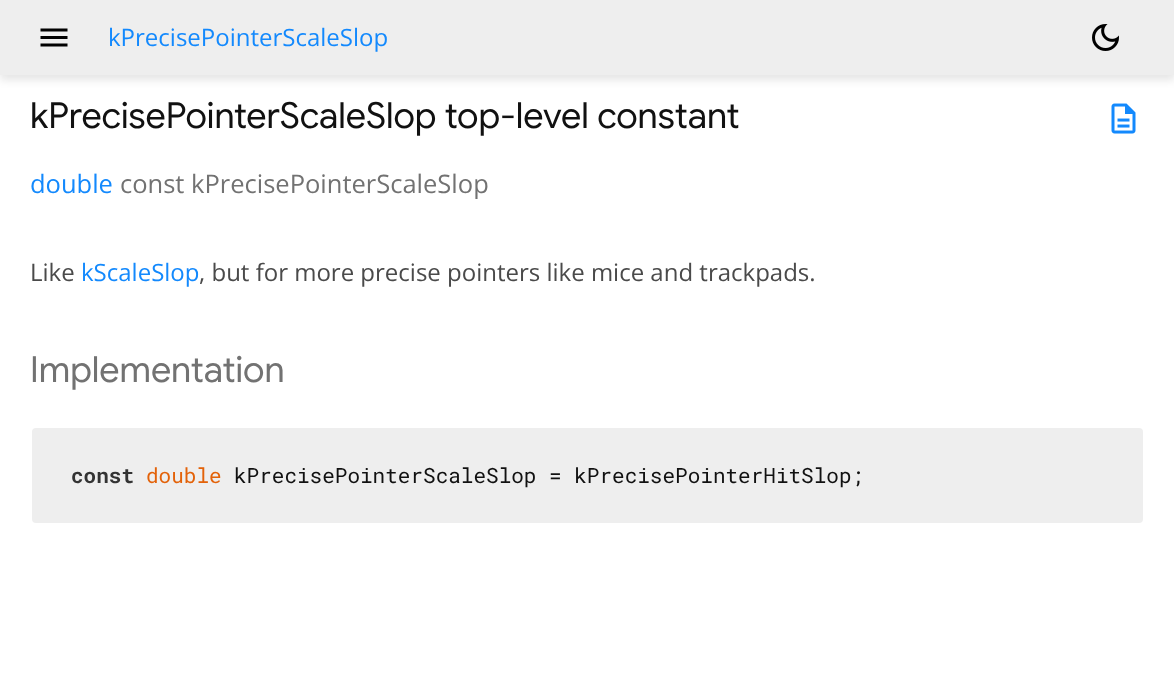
<?xml version="1.0" encoding="UTF-8"?>
<svg xmlns="http://www.w3.org/2000/svg" xmlns:xlink="http://www.w3.org/1999/xlink" width="1174" height="689">
  <rect width="100%" height="100%" fill="#ffffff" />
  <rect y="5" width="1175" height="75" fill="#000000" fill-opacity="0.1" filter="blur(4px)" />
  <rect width="1174" height="75" fill="#eeeeee" />
  <image x="40" y="28" width="28" height="19" xlink:href="image1.png" />
  <image x="1092" y="24" width="27" height="27" xlink:href="image2.png" />
  <image x="1111" y="103" width="25" height="31" xlink:href="image3.png" />
  <rect x="31" y="427" width="1113" height="97" rx="5" fill="#eeeeee" stroke="#ffffff" stroke-width="2" />
  <text x="108" y="46" style="font-family: Open Sans; font-size: 24px; fill: #1389fd">kPrecisePointerScaleSlop</text>
  <text x="30" y="128" style="font-family: Google Sans; font-size: 36px; fill: #111111">kPrecisePointerScaleSlop top-level constant</text>
  <text x="30" y="193" style="font-family: Open Sans; font-size: 25.5px; fill: #1389fd">double</text>
  <text x="120" y="193" style="font-family: Open Sans; font-size: 25.5px; fill: #727272">const kPrecisePointerScaleSlop</text>
  <text x="30" y="281" style="font-family: Open Sans; font-size: 24px; fill: #4a4a4a">Like</text>
  <text x="81" y="281" style="font-family: Open Sans; font-size: 24px; fill: #1389fd">kScaleSlop</text>
  <text x="199" y="281" style="font-family: Open Sans; font-size: 24px; fill: #4a4a4a">, but for more precise pointers like mice and trackpads.</text>
  <text x="30" y="382" style="font-family: Google Sans; font-size: 36px; fill: #727272">Implementation</text>
  <text x="71" y="483" style="font-family: Roboto Mono; font-size: 21px; font-weight: bold; fill: #333333">const</text>
  <text x="146" y="483" style="font-family: Roboto Mono; font-size: 21px; fill: #e36209">double</text>
  <text x="234" y="483" style="font-family: Roboto Mono; font-size: 21px; fill: #111111">kPrecisePointerScaleSlop = kPrecisePointerHitSlop;</text>
</svg>
